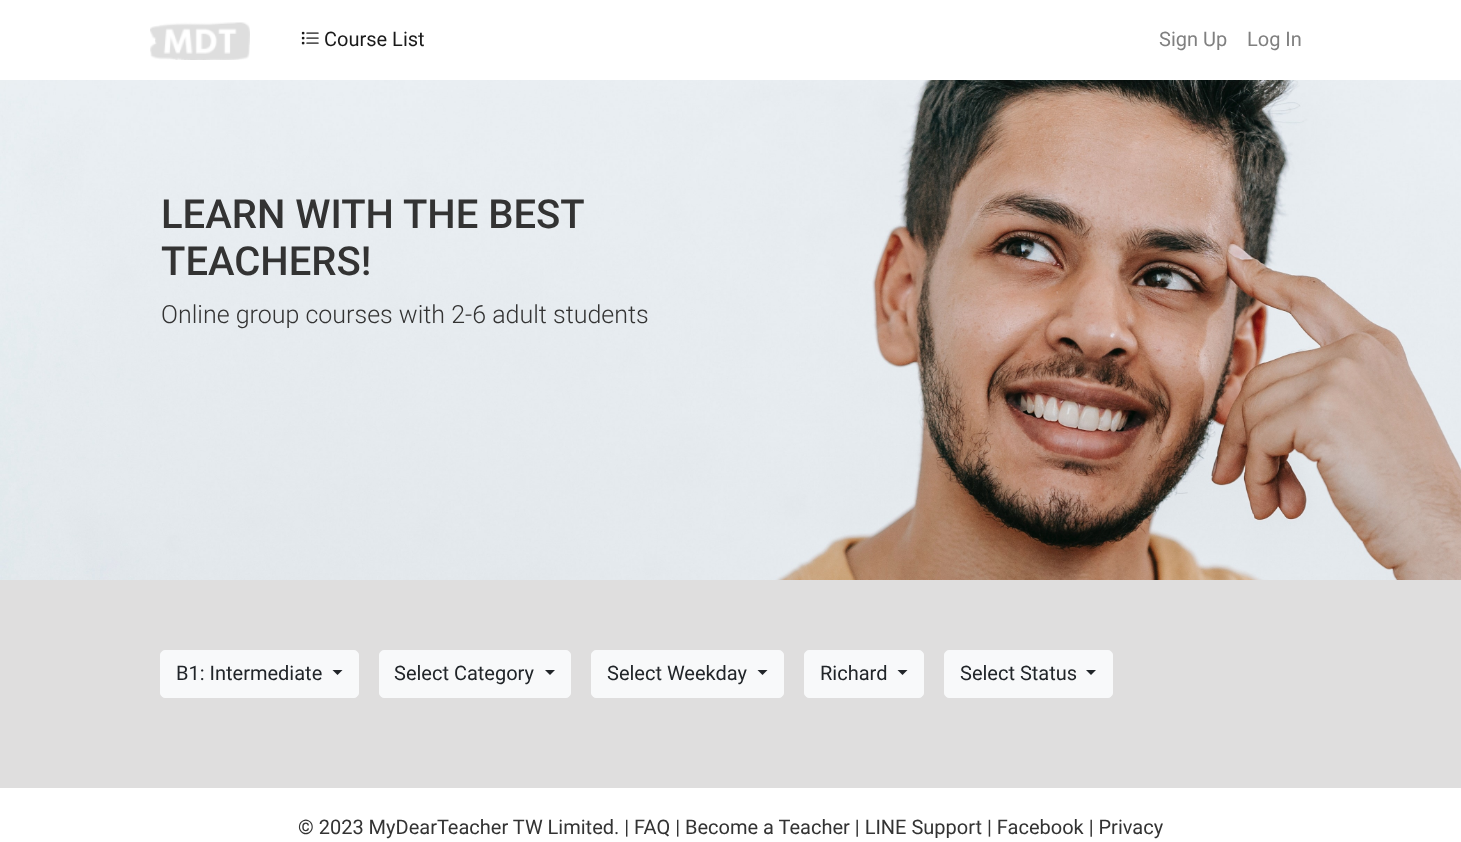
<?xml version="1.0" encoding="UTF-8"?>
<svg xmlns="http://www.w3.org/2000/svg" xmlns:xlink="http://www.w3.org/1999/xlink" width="1461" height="842">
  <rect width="100%" height="100%" fill="#dfdede" />
  <rect width="1461" height="80" fill="#ffffff" />
  <image x="150" y="22" width="100" height="38" xlink:href="image1.png" />
  <image x="301" y="31" width="18" height="14" xlink:href="image2.png" />
  <image x="0" y="80" width="1461" height="500" xlink:href="image3.png" />
  <rect x="160.5" y="650.5" width="198" height="47" rx="4.5" fill="#f8f9fa" stroke="#f8f9fa" />
  <path d="M 332.5 670 h 10 l -5 5 z" fill="#212529" />
  <rect x="379.5" y="650.5" width="191" height="47" rx="4.5" fill="#f8f9fa" stroke="#f8f9fa" />
  <path d="M 545 670 h 10 l -5 5 z" fill="#212529" />
  <rect x="591.5" y="650.5" width="192" height="47" rx="4.5" fill="#f8f9fa" stroke="#f8f9fa" />
  <path d="M 757.5 670 h 10 l -5 5 z" fill="#212529" />
  <rect x="804.5" y="650.5" width="119" height="47" rx="4.5" fill="#f8f9fa" stroke="#f8f9fa" />
  <path d="M 897.5 670 h 10 l -5 5 z" fill="#212529" />
  <rect x="944.5" y="650.5" width="168" height="47" rx="4.5" fill="#f8f9fa" stroke="#f8f9fa" />
  <path d="M 1086 670 h 10 l -5 5 z" fill="#212529" />
  <rect y="788" width="1461" height="54" fill="#ffffff" />
  <text x="324" y="46" style="font-family: Roboto; font-size: 20px; fill: #1a1a1a">Course List</text>
  <text x="1159" y="46" style="font-family: Roboto; font-size: 20px; fill: #808080">Sign Up</text>
  <text x="1247" y="46" style="font-family: Roboto; font-size: 20px; fill: #808080">Log In</text>
  <text x="161" y="228" style="font-family: Roboto; font-size: 40px; font-weight: 500; fill: #333333">LEARN WITH THE BEST</text>
  <text x="161" y="275" style="font-family: Roboto; font-size: 40px; font-weight: 500; fill: #333333">TEACHERS!</text>
  <text x="161" y="323" style="font-family: Roboto; font-size: 25px; font-weight: 300; fill: #333333">Online group courses with 2-6 adult students</text>
  <text x="176" y="680" style="font-family: Roboto; font-size: 20px; fill: #212529">B1: Intermediate</text>
  <text x="394" y="680" style="font-family: Roboto; font-size: 20px; fill: #212529">Select Category</text>
  <text x="607" y="680" style="font-family: Roboto; font-size: 20px; fill: #212529">Select Weekday</text>
  <text x="820" y="680" style="font-family: Roboto; font-size: 20px; fill: #212529">Richard</text>
  <text x="960" y="680" style="font-family: Roboto; font-size: 20px; fill: #212529">Select Status</text>
  <text x="298" y="834" style="font-family: Roboto; font-size: 20px; fill: #333333">© 2023 MyDearTeacher TW Limited. | FAQ | Become a Teacher | LINE Support | Facebook | Privacy</text>
</svg>
